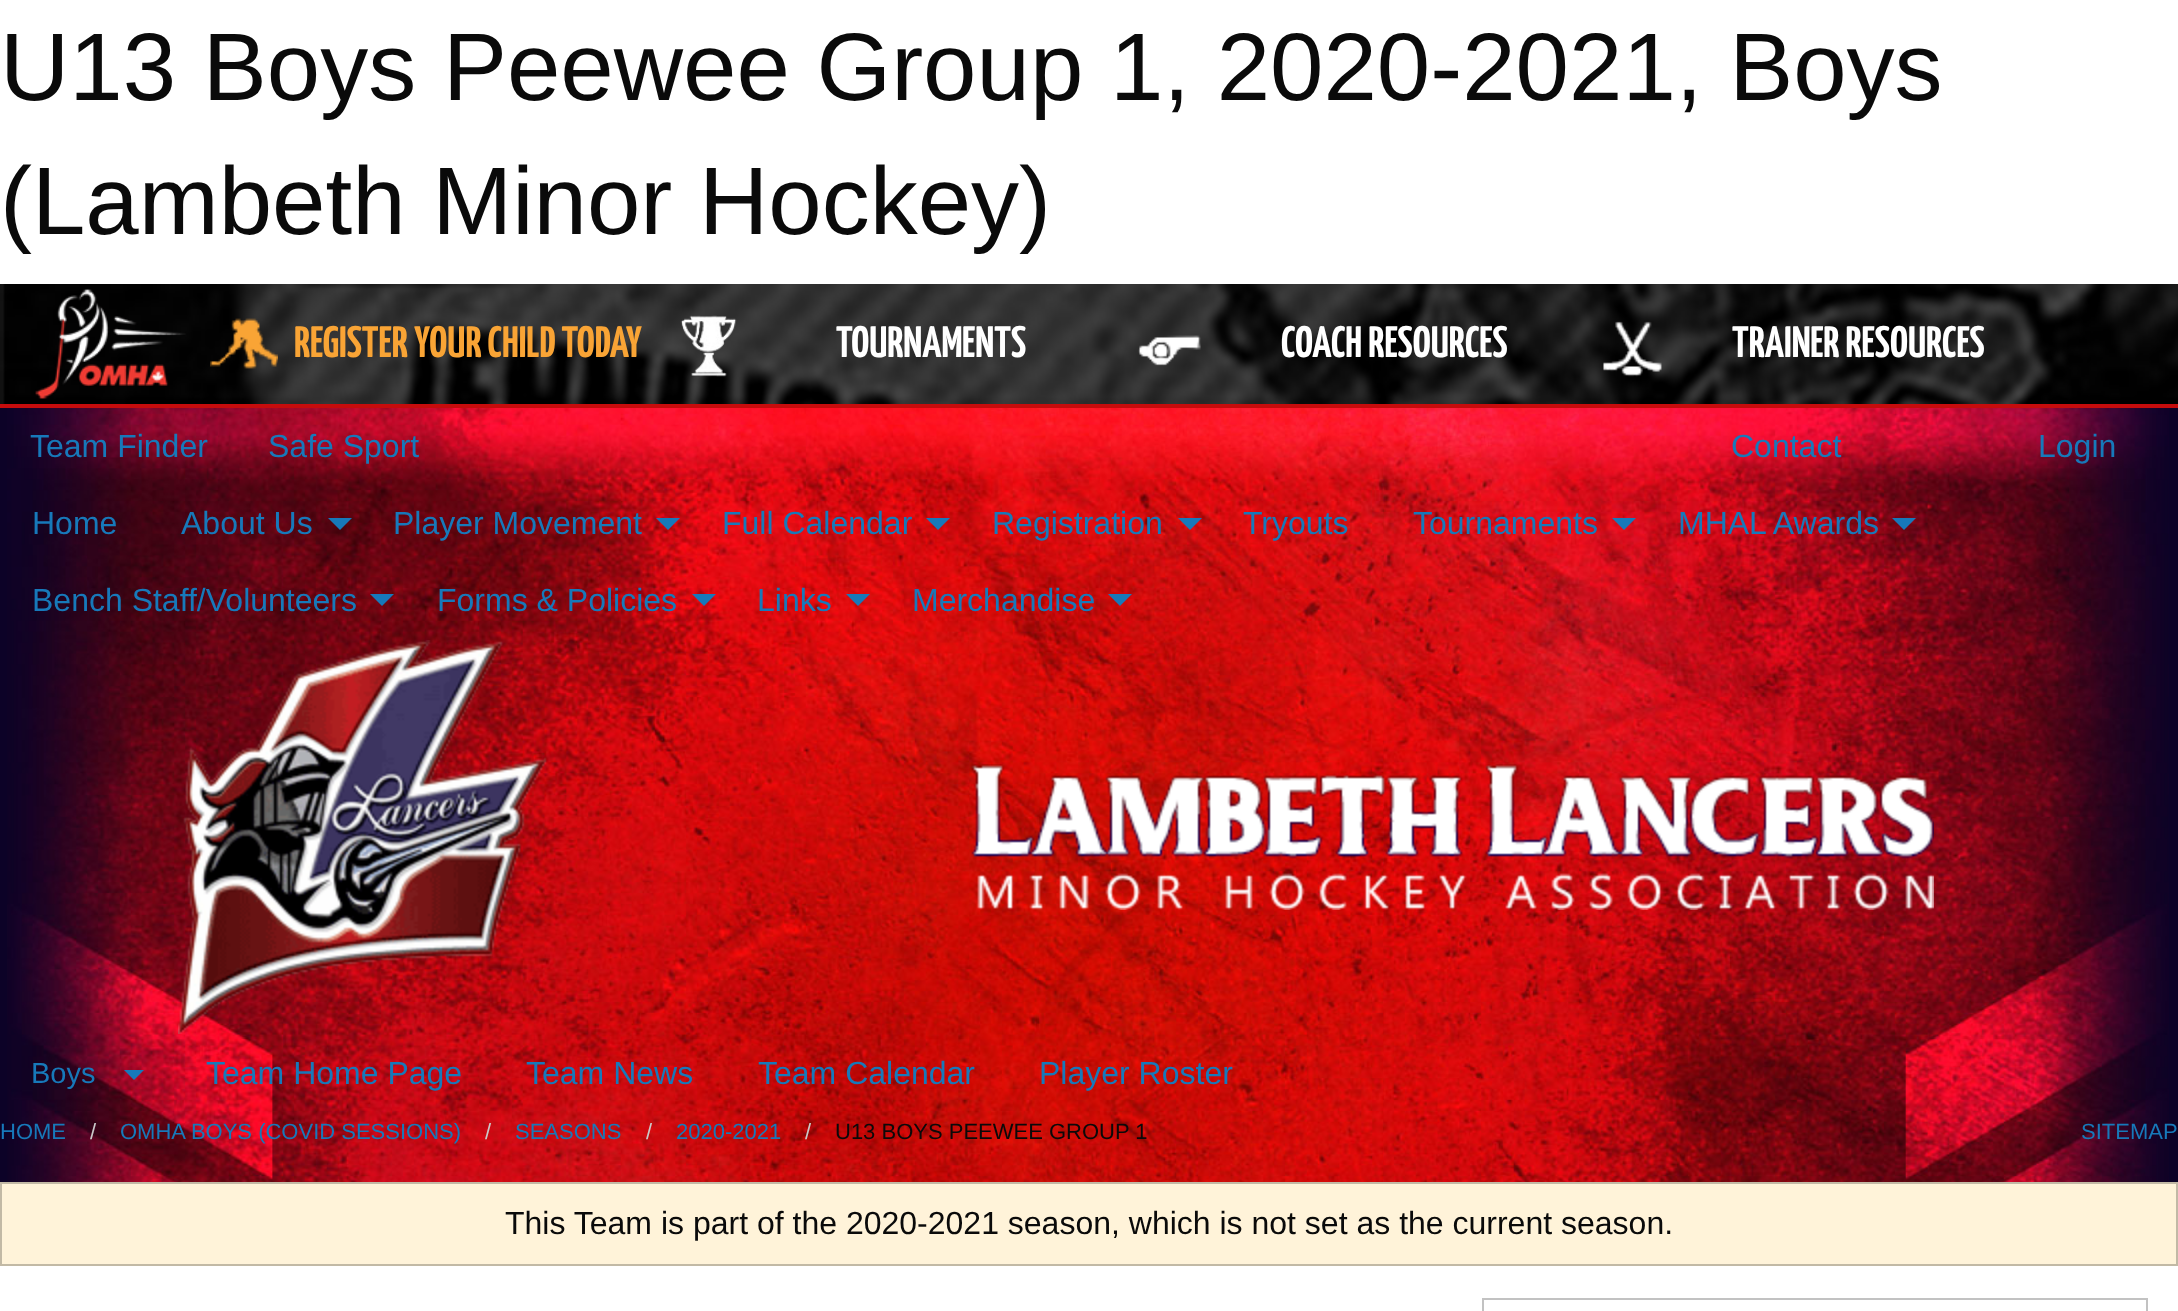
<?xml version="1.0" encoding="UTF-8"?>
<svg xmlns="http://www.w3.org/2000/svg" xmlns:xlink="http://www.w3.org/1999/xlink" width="2178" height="1311">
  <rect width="100%" height="100%" fill="#ffffff" />
  <rect y="404" width="2178" height="4" fill="#c60c0c" />
  <image x="0" y="284" width="2178" height="120" xlink:href="image1.png" />
  <image x="35" y="289" width="151" height="110" xlink:href="image2.png" />
  <image x="210" y="318" width="68" height="51" xlink:href="image3.png" />
  <image x="680" y="315" width="57" height="62" xlink:href="image4.png" />
  <image x="1138" y="335" width="63" height="31" xlink:href="image5.png" />
  <image x="1603" y="321" width="59" height="56" xlink:href="image6.png" />
  <rect y="408" width="2178" height="774" fill="#0c0227" />
  <image x="7" y="408" width="2162" height="774" xlink:href="image7.png" />
  <path d="M 328 518 h 24 l -12 12 z" fill="#1779ba" />
  <path d="M 656 518 h 24 l -12 12 z" fill="#1779ba" />
  <path d="M 926 518 h 24 l -12 12 z" fill="#1779ba" />
  <path d="M 1178 518 h 24 l -12 12 z" fill="#1779ba" />
  <path d="M 1612 518 h 24 l -12 12 z" fill="#1779ba" />
  <path d="M 1892 518 h 24 l -12 12 z" fill="#1779ba" />
  <path d="M 370 594 h 24 l -12 12 z" fill="#1779ba" />
  <path d="M 692 594 h 24 l -12 12 z" fill="#1779ba" />
  <path d="M 846 594 h 24 l -12 12 z" fill="#1779ba" />
  <path d="M 1108 594 h 24 l -12 12 z" fill="#1779ba" />
  <image x="178" y="640" width="369" height="394" xlink:href="image8.png" />
  <image x="971" y="764" width="963" height="146" xlink:href="image9.png" />
  <path d="M 124 1070 h 20 l -10 10 z" fill="#1779ba" />
  <rect x="1" y="1183" width="2176" height="82" fill="#fff3d9" stroke="#c2b9a5" stroke-width="2" />
  <rect x="1483" y="1299" width="664" height="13" fill="none" stroke="#c2c2c2" stroke-width="2" />
  <text x="0" y="100" style="font-family: Liberation Sans; font-size: 96px; fill: #0a0a0a">U13 Boys Peewee Group 1, 2020-2021, Boys</text>
  <text x="0" y="234" style="font-family: Liberation Sans; font-size: 96px; fill: #0a0a0a">(Lambeth Minor Hockey)</text>
  <text x="294" y="357" style="font-family: Yanone Kaffeesatz; font-size: 44px; font-weight: 200; fill: #f9a435">REGISTER YOUR CHILD TODAY</text>
  <text x="836" y="357" style="font-family: Yanone Kaffeesatz; font-size: 44px; font-weight: 200; fill: #ffffff">TOURNAMENTS</text>
  <text x="1281" y="357" style="font-family: Yanone Kaffeesatz; font-size: 44px; font-weight: 200; fill: #ffffff">COACH RESOURCES</text>
  <text x="1732" y="357" style="font-family: Yanone Kaffeesatz; font-size: 44px; font-weight: 200; fill: #ffffff">TRAINER RESOURCES</text>
  <text x="30" y="457" style="font-family: Liberation Sans; font-size: 32px; fill: #1779ba">Team Finder</text>
  <text x="268" y="457" style="font-family: Liberation Sans; font-size: 32px; fill: #1779ba">Safe Sport</text>
  <text x="1731" y="457" style="font-family: Liberation Sans; font-size: 32px; fill: #1779ba">Contact</text>
  <text x="2038" y="457" style="font-family: Liberation Sans; font-size: 32px; fill: #1779ba">Login</text>
  <text x="32" y="534" style="font-family: Liberation Sans; font-size: 32px; fill: #1779ba">Home</text>
  <text x="181" y="534" style="font-family: Liberation Sans; font-size: 32px; fill: #1779ba">About Us</text>
  <text x="393" y="534" style="font-family: Liberation Sans; font-size: 32px; fill: #1779ba">Player Movement</text>
  <text x="722" y="534" style="font-family: Liberation Sans; font-size: 32px; fill: #1779ba">Full Calendar</text>
  <text x="992" y="534" style="font-family: Liberation Sans; font-size: 32px; fill: #1779ba">Registration</text>
  <text x="1243" y="534" style="font-family: Liberation Sans; font-size: 32px; fill: #1779ba">Tryouts</text>
  <text x="1413" y="534" style="font-family: Liberation Sans; font-size: 32px; fill: #1779ba">Tournaments</text>
  <text x="1678" y="534" style="font-family: Liberation Sans; font-size: 32px; fill: #1779ba">MHAL Awards</text>
  <text x="32" y="611" style="font-family: Liberation Sans; font-size: 32px; fill: #1779ba">Bench Staff/Volunteers</text>
  <text x="437" y="611" style="font-family: Liberation Sans; font-size: 32px; fill: #1779ba">Forms &amp; Policies</text>
  <text x="757" y="611" style="font-family: Liberation Sans; font-size: 32px; fill: #1779ba">Links</text>
  <text x="912" y="611" style="font-family: Liberation Sans; font-size: 32px; fill: #1779ba">Merchandise</text>
  <text x="31" y="1083" style="font-family: Liberation Sans; font-size: 29px; fill: #1779ba">Boys</text>
  <text x="206" y="1084" style="font-family: Liberation Sans; font-size: 32px; fill: #1779ba">Team Home Page</text>
  <text x="526" y="1084" style="font-family: Liberation Sans; font-size: 32px; fill: #1779ba">Team News</text>
  <text x="758" y="1084" style="font-family: Liberation Sans; font-size: 32px; fill: #1779ba">Team Calendar</text>
  <text x="1039" y="1084" style="font-family: Liberation Sans; font-size: 32px; fill: #1779ba">Player Roster</text>
  <text x="0" y="1139" style="font-family: Liberation Sans; font-size: 22px; fill: #1779ba">HOME</text>
  <text x="90" y="1139" style="font-family: Liberation Sans; font-size: 22px; fill: #cacaca">/</text>
  <text x="120" y="1139" style="font-family: Liberation Sans; font-size: 22px; fill: #1779ba">OMHA BOYS (COVID SESSIONS)</text>
  <text x="485" y="1139" style="font-family: Liberation Sans; font-size: 22px; fill: #cacaca">/</text>
  <text x="515" y="1139" style="font-family: Liberation Sans; font-size: 22px; fill: #1779ba">SEASONS</text>
  <text x="646" y="1139" style="font-family: Liberation Sans; font-size: 22px; fill: #cacaca">/</text>
  <text x="676" y="1139" style="font-family: Liberation Sans; font-size: 22px; fill: #1779ba">2020-2021</text>
  <text x="805" y="1139" style="font-family: Liberation Sans; font-size: 22px; fill: #cacaca">/</text>
  <text x="835" y="1139" style="font-family: Liberation Sans; font-size: 22px; fill: #0a0a0a">U13 BOYS PEEWEE GROUP 1</text>
  <text x="2081" y="1139" style="font-family: Liberation Sans; font-size: 22px; fill: #1779ba">SITEMAP</text>
  <text x="505" y="1234" style="font-family: Liberation Sans; font-size: 32px; fill: #0a0a0a">This Team is part of the 2020-2021 season, which is not set as the current season.</text>
</svg>
